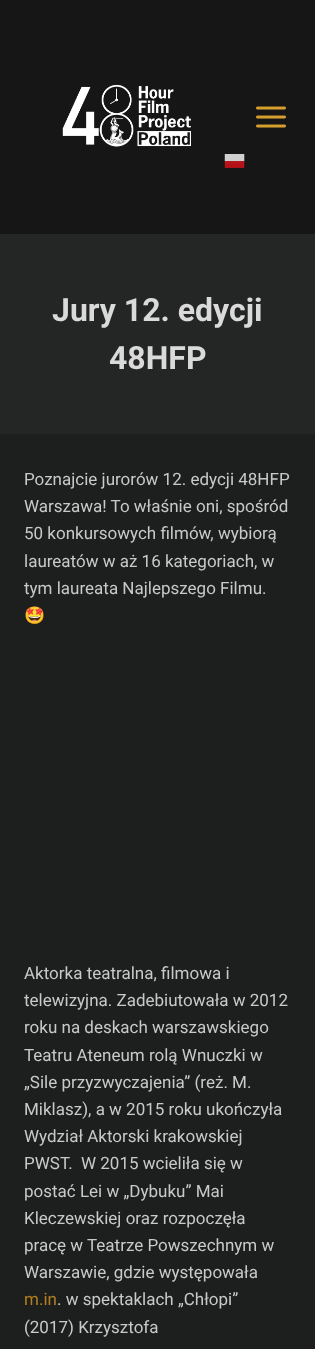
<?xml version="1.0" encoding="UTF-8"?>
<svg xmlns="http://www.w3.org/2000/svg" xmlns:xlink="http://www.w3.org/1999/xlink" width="315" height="1349">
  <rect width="100%" height="100%" fill="#1d1f1f" />
  <rect width="315" height="234" fill="#161616" />
  <image x="62" y="84" width="129" height="63" xlink:href="image1.png" />
  <image x="256" y="106" width="30" height="22" xlink:href="image2.png" />
  <image x="224" y="154" width="21" height="14" xlink:href="image3.png" />
  <rect y="234" width="315" height="200" fill="#242525" />
  <text x="52" y="321" style="font-family: Roboto; font-size: 32px; font-weight: bold; fill: #dadada">Jury 12. edycji</text>
  <text x="109" y="369" style="font-family: Roboto; font-size: 32px; font-weight: bold; fill: #dadada">48HFP</text>
  <text x="24" y="485" style="font-family: Roboto; font-size: 17px; fill: #c9c9c9">Poznajcie jurorów 12. edycji 48HFP</text>
  <text x="24" y="512" style="font-family: Roboto; font-size: 17px; fill: #c9c9c9">Warszawa! To właśnie oni, spośród</text>
  <text x="24" y="539" style="font-family: Roboto; font-size: 17px; fill: #c9c9c9">50 konkursowych filmów, wybiorą</text>
  <text x="24" y="567" style="font-family: Roboto; font-size: 17px; fill: #c9c9c9">laureatów w aż 16 kategoriach, w</text>
  <text x="24" y="594" style="font-family: Roboto; font-size: 17px; fill: #c9c9c9">tym laureata Najlepszego Filmu.</text>
  <text x="24" y="621" style="font-family: Noto Color Emoji; font-size: 17px; fill: #c9c9c9">🤩</text>
  <text x="24" y="979" style="font-family: Roboto; font-size: 17px; fill: #c9c9c9">Aktorka teatralna, filmowa i</text>
  <text x="24" y="1006" style="font-family: Roboto; font-size: 17px; fill: #c9c9c9">telewizyjna. Zadebiutowała w 2012</text>
  <text x="24" y="1033" style="font-family: Roboto; font-size: 17px; fill: #c9c9c9">roku na deskach warszawskiego</text>
  <text x="24" y="1061" style="font-family: Roboto; font-size: 17px; fill: #c9c9c9">Teatru Ateneum rolą Wnuczki w</text>
  <text x="24" y="1088" style="font-family: Roboto; font-size: 17px; fill: #c9c9c9">„Sile przyzwyczajenia” (reż. M.</text>
  <text x="24" y="1115" style="font-family: Roboto; font-size: 17px; fill: #c9c9c9">Miklasz), a w 2015 roku ukończyła</text>
  <text x="24" y="1142" style="font-family: Roboto; font-size: 17px; fill: #c9c9c9">Wydział Aktorski krakowskiej</text>
  <text x="24" y="1169" style="font-family: Roboto; font-size: 17px; fill: #c9c9c9">PWST.</text>
  <text x="81" y="1169" style="font-family: Roboto; font-size: 17px; fill: #c9c9c9">W 2015 wcieliła się w</text>
  <text x="24" y="1197" style="font-family: Roboto; font-size: 17px; fill: #c9c9c9">postać Lei w „Dybuku” Mai</text>
  <text x="24" y="1224" style="font-family: Roboto; font-size: 17px; fill: #c9c9c9">Kleczewskiej oraz rozpoczęła</text>
  <text x="24" y="1251" style="font-family: Roboto; font-size: 17px; fill: #c9c9c9">pracę w Teatrze Powszechnym w</text>
  <text x="24" y="1278" style="font-family: Roboto; font-size: 17px; fill: #c9c9c9">Warszawie, gdzie występowała</text>
  <text x="24" y="1305" style="font-family: Roboto; font-size: 17px; fill: #b57f1c">m.in</text>
  <text x="57" y="1305" style="font-family: Roboto; font-size: 17px; fill: #c9c9c9">. w spektaklach „Chłopi”</text>
  <text x="24" y="1333" style="font-family: Roboto; font-size: 17px; fill: #c9c9c9">(2017) Krzysztofa</text>
</svg>
